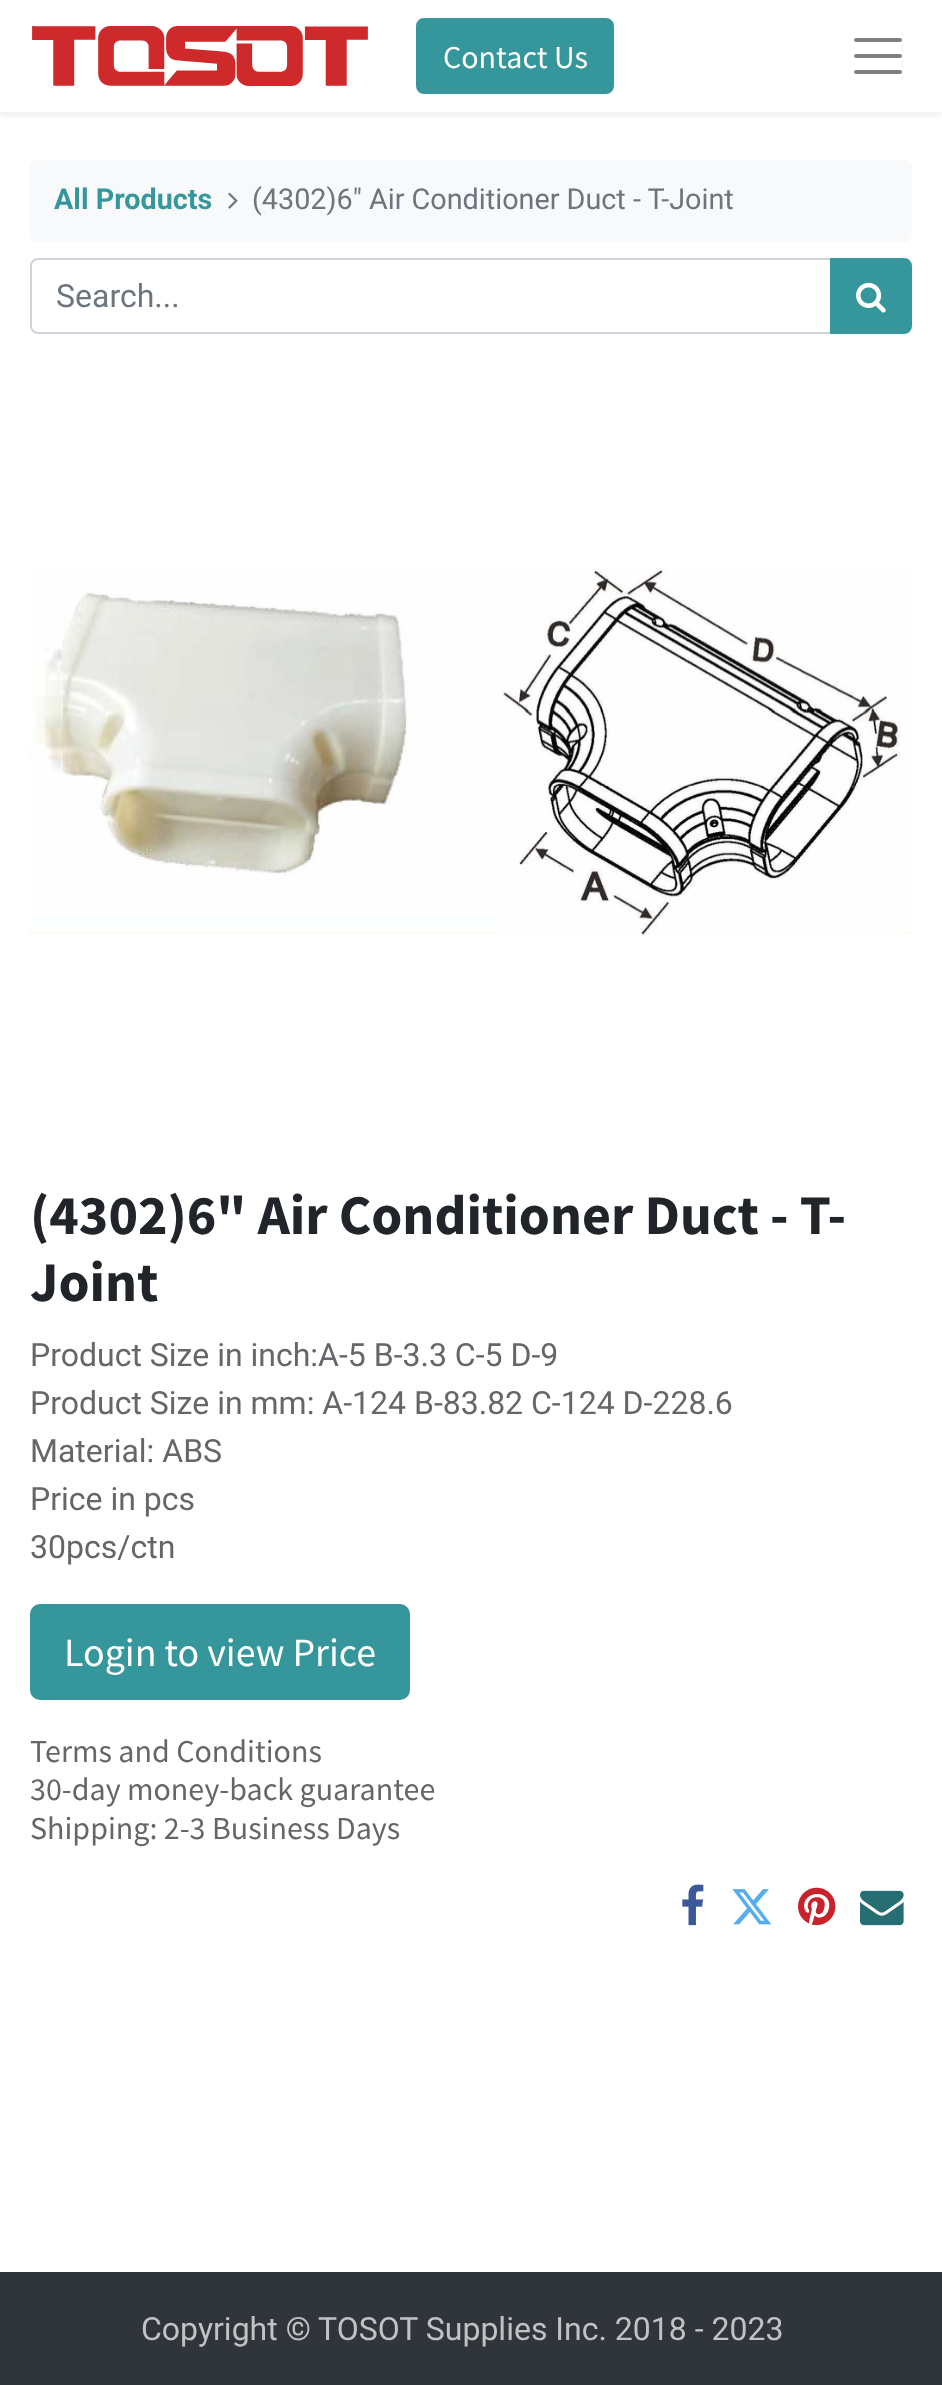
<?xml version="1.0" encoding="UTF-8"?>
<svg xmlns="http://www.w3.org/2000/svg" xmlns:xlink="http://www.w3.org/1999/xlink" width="942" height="2385">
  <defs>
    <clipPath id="clip1"><rect x="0" y="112" width="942" height="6" /></clipPath>
  </defs>
  <rect width="100%" height="100%" fill="#ffffff" />
  <g clip-path="url(#clip1)">
    <rect y="4" width="942" height="112" fill="#000000" fill-opacity="0.07" filter="blur(4px)" />
  </g>
  <image x="32" y="26" width="336" height="60" xlink:href="image1.png" />
  <rect x="417" y="19" width="196" height="74" rx="7" fill="#35979c" stroke="#35979c" stroke-width="2" />
  <path d="M 856 40 h 44 m -44 16 h 44 m -44 16 h 44" fill="none" stroke="#808080" stroke-width="4" stroke-linecap="round" />
  <rect x="30" y="160" width="882" height="82" rx="8" fill="#f8f9fa" />
  <image x="228" y="192" width="10" height="17" xlink:href="image2.png" />
  <path d="M 38 259 h 793 v 74 h -793 c -4 0 -7 -3 -7 -7 v -60 c 0 -4 3 -7 7 -7 z" fill="none" stroke="#ced4da" stroke-width="2" />
  <path d="M 831 259 h 73 c 4 0 7 3 7 7 v 60 c 0 4 -3 7 -7 7 h -73 z" fill="#35979c" stroke="#35979c" stroke-width="2" />
  <image x="856" y="282" width="30" height="31" xlink:href="image3.png" />
  <image x="30" y="569" width="882" height="366" xlink:href="image4.png" />
  <rect x="31" y="1605" width="378" height="94" rx="9" fill="#35979c" stroke="#35979c" stroke-width="2" />
  <image x="682" y="1884" width="22" height="42" xlink:href="image5.png" />
  <image x="732" y="1889" width="40" height="36" xlink:href="image6.png" />
  <image x="798" y="1887" width="38" height="39" xlink:href="image7.png" />
  <image x="860" y="1890" width="44" height="36" xlink:href="image8.png" />
  <rect y="2272" width="942" height="113" fill="#30353b" />
  <text x="443" y="68" style="font-family: Source Sans Pro; font-size: 32px; fill: #ffffff">Contact Us</text>
  <text x="54" y="209" style="font-family: Roboto; font-size: 28.75px; font-weight: bold; fill: #35979c">All Products</text>
  <text x="252" y="209" style="font-family: Roboto; font-size: 28.75px; fill: #6c757d">(4302)6" Air Conditioner Duct - T-Joint</text>
  <text x="56" y="307" style="font-family: Roboto; font-size: 32px; fill: #6c757d">Search...</text>
  <text x="30" y="1234" style="font-family: Source Sans Pro; font-size: 56px; font-weight: bold; fill: #212529">(4302)6" Air Conditioner Duct - T-</text>
  <text x="30" y="1301" style="font-family: Source Sans Pro; font-size: 56px; font-weight: bold; fill: #212529">Joint</text>
  <text x="30" y="1366" style="font-family: Roboto; font-size: 32px; fill: #646669">Product Size in inch:A-5 B-3.3 C-5 D-9</text>
  <text x="30" y="1414" style="font-family: Roboto; font-size: 32px; fill: #646669">Product Size in mm: A-124 B-83.82 C-124 D-228.6</text>
  <text x="30" y="1462" style="font-family: Roboto; font-size: 32px; fill: #646669">Material: ABS</text>
  <text x="30" y="1510" style="font-family: Roboto; font-size: 32px; fill: #646669">Price in pcs</text>
  <text x="30" y="1558" style="font-family: Roboto; font-size: 32px; fill: #646669">30pcs/ctn</text>
  <text x="64" y="1666" style="font-family: Source Sans Pro; font-size: 40px; fill: #ffffff">Login to view Price</text>
  <text x="30" y="1762" style="font-family: Source Sans Pro; font-size: 32px; fill: #646669">Terms and Conditions</text>
  <text x="30" y="1800" style="font-family: Source Sans Pro; font-size: 32px; fill: #646669">30-day money-back guarantee</text>
  <text x="30" y="1839" style="font-family: Source Sans Pro; font-size: 32px; fill: #646669">Shipping: 2-3 Business Days</text>
  <text x="141" y="2340" style="font-family: Roboto; font-size: 32px; fill: #c1c2c4">Copyright © TOSOT Supplies Inc. 2018 - 2023</text>
</svg>
